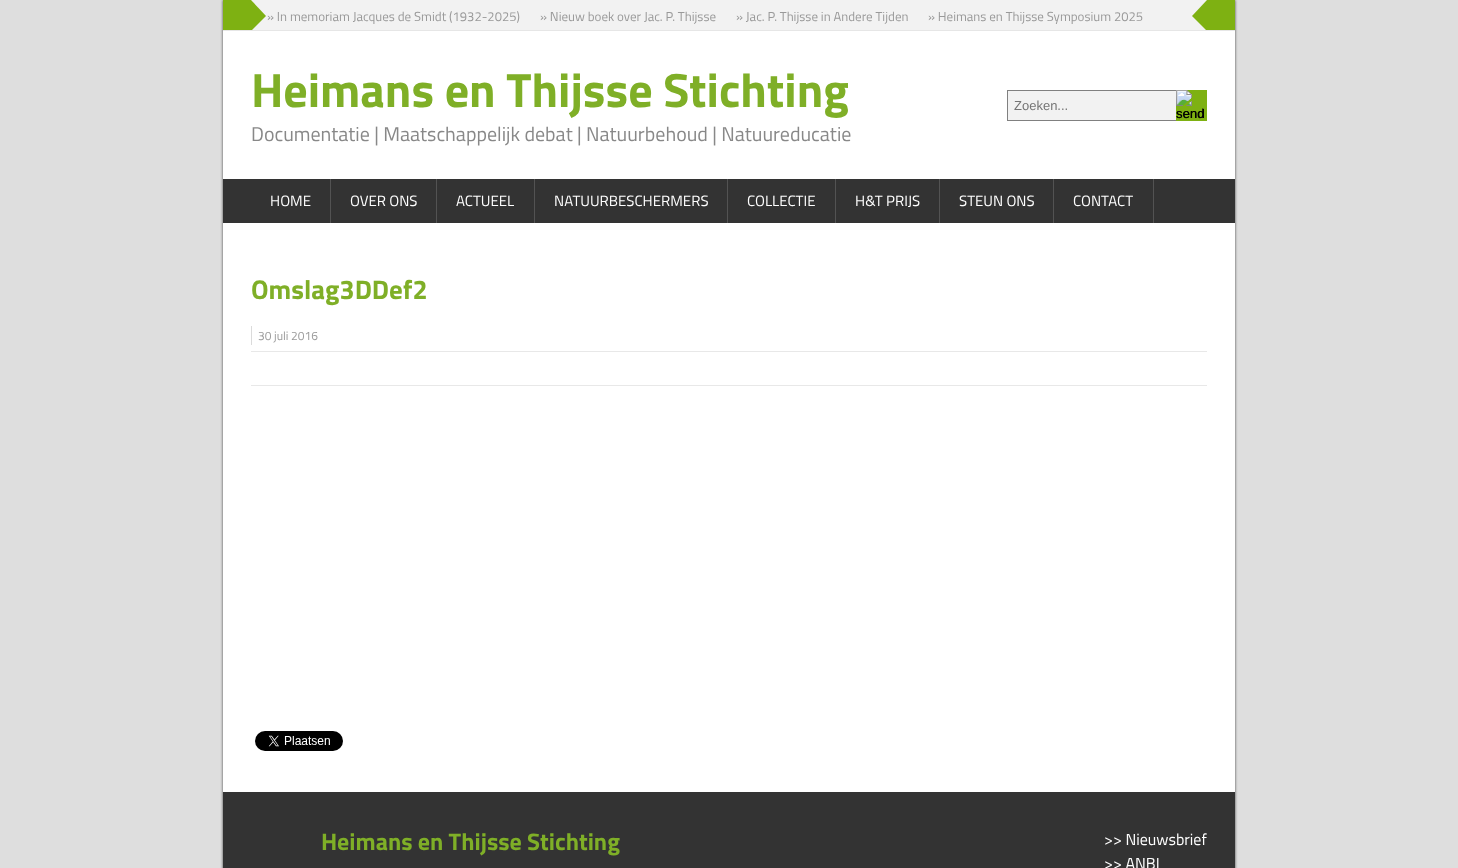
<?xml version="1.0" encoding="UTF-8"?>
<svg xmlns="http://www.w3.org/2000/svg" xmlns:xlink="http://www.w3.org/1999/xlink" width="1458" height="868">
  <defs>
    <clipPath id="clip1"><rect x="251" width="956" height="30" /></clipPath>
  </defs>
  <rect width="100%" height="100%" fill="#dedede" />
  <rect x="223" width="1012" height="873" fill="#444444" filter="blur(1.5px)" />
  <rect x="223" y="31" width="1012" height="761" fill="#ffffff" />
  <rect x="223" width="1012" height="30" fill="#7eb112" />
  <rect x="223" y="30" width="1012" height="1" fill="#e6e6e6" />
  <rect x="251" width="956" height="30" fill="#f2f2f2" />
  <g clip-path="url(#clip1)">
    <path d="M 250 -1 l 16 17 l -37 37 l -16 -17 z" fill="#7eb112" />
    <path d="M 1245 36 l -16 17 l -37 -37 l 16 -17 z" fill="#7eb112" />
  </g>
  <rect x="1008" y="91" width="168" height="29" fill="#f2f2f2" />
  <rect x="1007.5" y="90.5" width="199" height="30" fill="none" stroke="#808080" />
  <rect x="1176" y="90" width="31" height="31" fill="#7eb112" />
  <image x="1176" y="90" width="28" height="28" xlink:href="image1.png" />
  <rect x="223" y="179" width="1012" height="44" fill="#333333" />
  <rect x="330" y="179" width="1" height="44" fill="#535353" />
  <rect x="436" y="179" width="1" height="44" fill="#535353" />
  <rect x="534" y="179" width="1" height="44" fill="#535353" />
  <rect x="727" y="179" width="1" height="44" fill="#535353" />
  <rect x="835" y="179" width="1" height="44" fill="#535353" />
  <rect x="939" y="179" width="1" height="44" fill="#535353" />
  <rect x="1053" y="179" width="1" height="44" fill="#535353" />
  <rect x="1153" y="179" width="1" height="44" fill="#535353" />
  <rect x="251" y="326" width="1" height="19" fill="#dbdbdb" />
  <rect x="251" y="351" width="956" height="1" fill="#e8e8e8" />
  <rect x="251" y="385" width="956" height="1" fill="#e8e8e8" />
  <image x="255" y="731" width="88" height="20" xlink:href="image2.png" />
  <rect x="223" y="792" width="1012" height="76" fill="#333333" />
  <text x="267" y="21" style="font-family: Titillium Web; font-size: 13px; fill: #999999">» In memoriam Jacques de Smidt (1932-2025)</text>
  <text x="540" y="21" style="font-family: Titillium Web; font-size: 13px; fill: #999999">» Nieuw boek over Jac. P. Thijsse</text>
  <text x="736" y="21" style="font-family: Titillium Web; font-size: 13px; fill: #999999">» Jac. P. Thijsse in Andere Tijden</text>
  <text x="928" y="21" style="font-family: Titillium Web; font-size: 13px; fill: #999999">» Heimans en Thijsse Symposium 2025</text>
  <text x="251" y="107" style="font-family: Titillium Web; font-size: 48px; font-weight: bold; fill: #7faf27">Heimans en Thijsse Stichting</text>
  <text x="1014" y="110" style="font-family: Liberation Sans; font-size: 13px; fill: #757575">Zoeken...</text>
  <text x="1176" y="118" style="font-family: Liberation Sans; font-size: 13px; fill: #000000">send</text>
  <text x="251" y="141" style="font-family: Titillium Web; font-size: 20px; fill: #888888">Documentatie | Maatschappelijk debat | Natuurbehoud | Natuureducatie</text>
  <text x="270" y="206" style="font-family: Titillium Web; font-size: 15px; fill: #ffffff">HOME</text>
  <text x="350" y="206" style="font-family: Titillium Web; font-size: 15px; fill: #ffffff">OVER ONS</text>
  <text x="456" y="206" style="font-family: Titillium Web; font-size: 15px; fill: #ffffff">ACTUEEL</text>
  <text x="554" y="206" style="font-family: Titillium Web; font-size: 15px; fill: #ffffff">NATUURBESCHERMERS</text>
  <text x="747" y="206" style="font-family: Titillium Web; font-size: 15px; fill: #ffffff">COLLECTIE</text>
  <text x="855" y="206" style="font-family: Titillium Web; font-size: 15px; fill: #ffffff">H&amp;T PRIJS</text>
  <text x="959" y="206" style="font-family: Titillium Web; font-size: 15px; fill: #ffffff">STEUN ONS</text>
  <text x="1073" y="206" style="font-family: Titillium Web; font-size: 15px; fill: #ffffff">CONTACT</text>
  <text x="251" y="299" style="font-family: Titillium Web; font-size: 27px; font-weight: bold; fill: #7faf27">Omslag3DDef2</text>
  <text x="258" y="340" style="font-family: Titillium Web; font-size: 12px; fill: #999999">30 juli 2016</text>
  <text x="321" y="850" style="font-family: Titillium Web; font-size: 24px; font-weight: bold; fill: #7faf27">Heimans en Thijsse Stichting</text>
  <text x="1104" y="845" style="font-family: Titillium Web; font-size: 16px; fill: #ffffff">&gt;&gt; Nieuwsbrief</text>
  <text x="1104" y="869" style="font-family: Titillium Web; font-size: 16px; fill: #ffffff">&gt;&gt; ANBI</text>
</svg>
